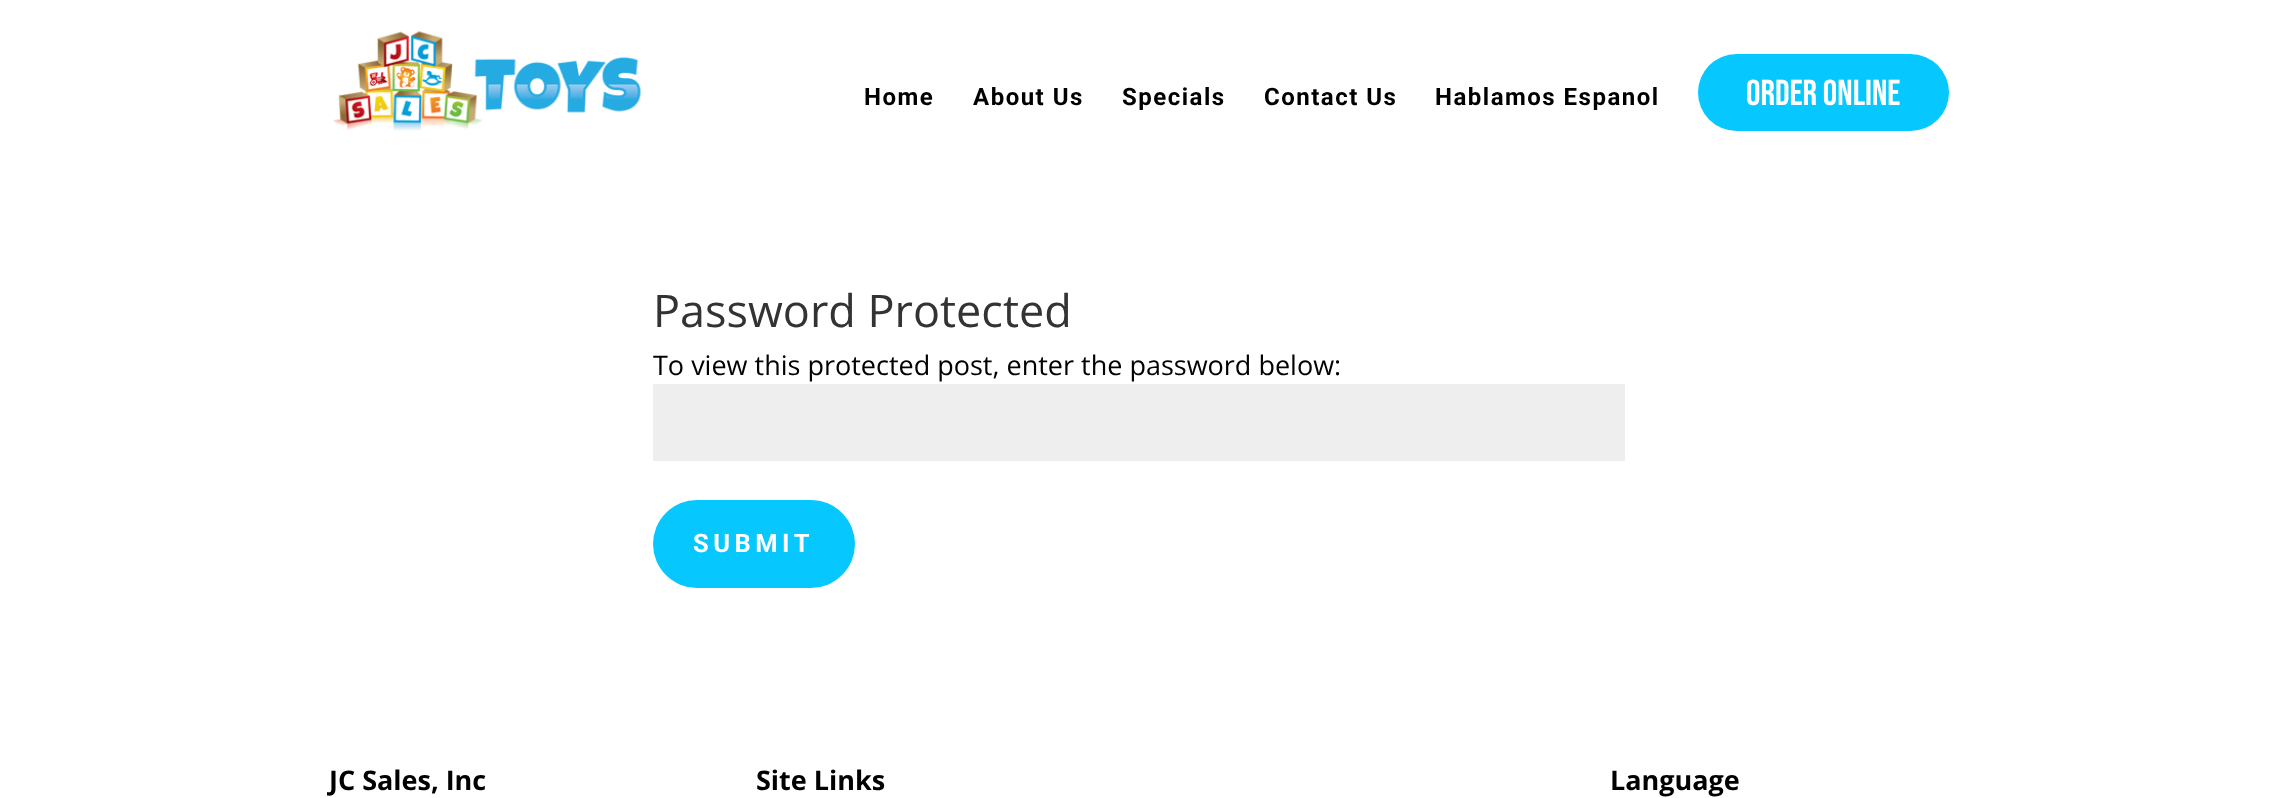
<?xml version="1.0" encoding="UTF-8"?>
<svg xmlns="http://www.w3.org/2000/svg" xmlns:xlink="http://www.w3.org/1999/xlink" width="2276" height="798">
  <rect width="100%" height="100%" fill="#ffffff" />
  <image x="333" y="31" width="308" height="100" xlink:href="image1.png" />
  <rect x="1698" y="54" width="251" height="77" rx="38.5" fill="#06c8ff" />
  <rect x="653" y="384" width="972" height="77" fill="#eeeeee" />
  <rect x="653" y="500" width="202" height="88" rx="44" fill="#06c8ff" />
  <text x="864" y="105" style="font-family: Roboto; font-size: 24px; font-weight: bold; letter-spacing: 1.5px; fill: #000000">Home</text>
  <text x="973" y="105" style="font-family: Roboto; font-size: 24px; font-weight: bold; letter-spacing: 1.5px; fill: #000000">About Us</text>
  <text x="1122" y="105" style="font-family: Roboto; font-size: 24px; font-weight: bold; letter-spacing: 1.5px; fill: #000000">Specials</text>
  <text x="1264" y="105" style="font-family: Roboto; font-size: 24px; font-weight: bold; letter-spacing: 1.5px; fill: #000000">Contact Us</text>
  <text x="1435" y="105" style="font-family: Roboto; font-size: 24px; font-weight: bold; letter-spacing: 1.5px; fill: #000000">Hablamos Espanol</text>
  <text x="1746" y="105" style="font-family: Bebas Neue; font-size: 36px; fill: #ffffff">Order Online</text>
  <text x="653" y="327" style="font-family: Open Sans; font-size: 45px; fill: #333333">Password Protected</text>
  <text x="653" y="375" style="font-family: Open Sans; font-size: 27px; fill: #000000">To view this protected post, enter the password below:</text>
  <text x="693" y="552" style="font-family: Roboto; font-size: 25.5px; font-weight: bold; letter-spacing: 4.5px; fill: #ffffff">SUBMIT</text>
  <text x="329" y="790" style="font-family: Open Sans; font-size: 27px; font-weight: bold; fill: #000000">JC Sales, Inc</text>
  <text x="756" y="790" style="font-family: Open Sans; font-size: 27px; font-weight: bold; fill: #000000">Site Links</text>
  <text x="1610" y="790" style="font-family: Open Sans; font-size: 27px; font-weight: bold; fill: #000000">Language</text>
</svg>
